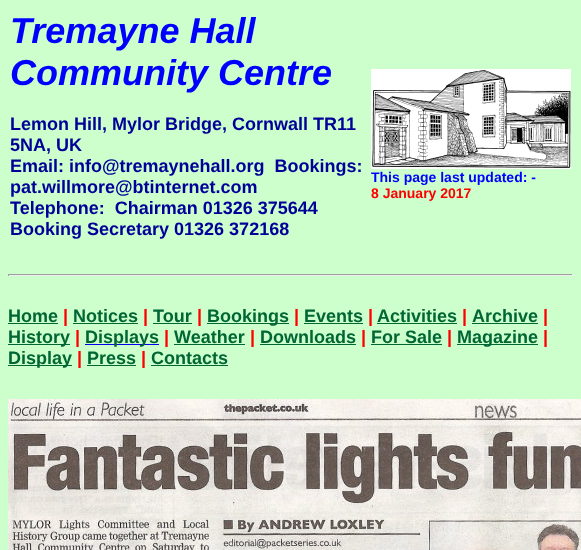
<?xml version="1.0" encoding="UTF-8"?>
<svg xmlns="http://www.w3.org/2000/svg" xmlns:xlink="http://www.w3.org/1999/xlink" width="581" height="550">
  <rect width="100%" height="100%" fill="#ccffcc" />
  <image x="371" y="69" width="200" height="100" xlink:href="image1.png" />
  <rect x="8" y="274" width="565" height="1" fill="#9f9f9f" />
  <rect x="572" y="274" width="1" height="2" fill="#eeeeee" />
  <rect x="8" y="275" width="565" height="1" fill="#eeeeee" />
  <rect x="8" y="274" width="1" height="2" fill="#9f9f9f" />
  <rect x="8" y="323" width="50" height="1" fill="#006633" />
  <rect x="73" y="323" width="65" height="1" fill="#006633" />
  <rect x="153" y="323" width="39" height="1" fill="#006633" />
  <rect x="207" y="323" width="82" height="1" fill="#006633" />
  <rect x="304" y="323" width="59" height="1" fill="#006633" />
  <rect x="377" y="323" width="80" height="1" fill="#006633" />
  <rect x="472" y="323" width="66" height="1" fill="#006633" />
  <rect x="8" y="344" width="62" height="1" fill="#006633" />
  <rect x="85" y="344" width="74" height="1" fill="#0000ee" />
  <rect x="174" y="344" width="71" height="1" fill="#006633" />
  <rect x="260" y="344" width="96" height="1" fill="#006633" />
  <rect x="371" y="344" width="71" height="1" fill="#006633" />
  <rect x="457" y="344" width="81" height="1" fill="#006633" />
  <rect x="8" y="365" width="64" height="1" fill="#006633" />
  <rect x="87" y="365" width="49" height="1" fill="#006633" />
  <rect x="151" y="365" width="77" height="1" fill="#006633" />
  <image x="8" y="399" width="573" height="151" xlink:href="image2.png" />
  <text x="10" y="43" style="font-family: Liberation Sans; font-size: 36px; font-weight: bold; font-style: italic; fill: #0000ff">Tremayne Hall</text>
  <text x="10" y="85" style="font-family: Liberation Sans; font-size: 36px; font-weight: bold; font-style: italic; fill: #0000ff">Community Centre</text>
  <text x="10" y="130" style="font-family: Liberation Sans; font-size: 18px; font-weight: bold; fill: #000099">Lemon Hill, Mylor Bridge, Cornwall TR11</text>
  <text x="10" y="151" style="font-family: Liberation Sans; font-size: 18px; font-weight: bold; fill: #000099">5NA, UK</text>
  <text x="10" y="172" style="font-family: Liberation Sans; font-size: 18px; font-weight: bold; fill: #000099" xml:space="preserve">Email: info@tremaynehall.org  Bookings:</text>
  <text x="10" y="193" style="font-family: Liberation Sans; font-size: 18px; font-weight: bold; fill: #000099">pat.willmore@btinternet.com</text>
  <text x="10" y="214" style="font-family: Liberation Sans; font-size: 18px; font-weight: bold; fill: #000099" xml:space="preserve">Telephone:  Chairman 01326 375644</text>
  <text x="10" y="235" style="font-family: Liberation Sans; font-size: 18px; font-weight: bold; fill: #000099">Booking Secretary 01326 372168</text>
  <text x="371" y="182" style="font-family: Liberation Sans; font-size: 14px; font-weight: bold; fill: #0000ff">This page last updated: -</text>
  <text x="371" y="198" style="font-family: Liberation Sans; font-size: 14px; font-weight: bold; fill: #ff0000">8 January 2017</text>
  <text x="8" y="322" style="font-family: Liberation Sans; font-size: 18px; font-weight: bold; fill: #006633">Home</text>
  <text x="63" y="322" style="font-family: Liberation Sans; font-size: 18px; font-weight: bold; fill: #ff0000">|</text>
  <text x="73" y="322" style="font-family: Liberation Sans; font-size: 18px; font-weight: bold; fill: #006633">Notices</text>
  <text x="143" y="322" style="font-family: Liberation Sans; font-size: 18px; font-weight: bold; fill: #ff0000">|</text>
  <text x="153" y="322" style="font-family: Liberation Sans; font-size: 18px; font-weight: bold; fill: #006633">Tour</text>
  <text x="197" y="322" style="font-family: Liberation Sans; font-size: 18px; font-weight: bold; fill: #ff0000">|</text>
  <text x="207" y="322" style="font-family: Liberation Sans; font-size: 18px; font-weight: bold; fill: #006633">Bookings</text>
  <text x="294" y="322" style="font-family: Liberation Sans; font-size: 18px; font-weight: bold; fill: #ff0000">|</text>
  <text x="304" y="322" style="font-family: Liberation Sans; font-size: 18px; font-weight: bold; fill: #006633">Events</text>
  <text x="368" y="322" style="font-family: Liberation Sans; font-size: 18px; font-weight: bold; fill: #ff0000">|</text>
  <text x="377" y="322" style="font-family: Liberation Sans; font-size: 18px; font-weight: bold; fill: #006633">Activities</text>
  <text x="462" y="322" style="font-family: Liberation Sans; font-size: 18px; font-weight: bold; fill: #ff0000">|</text>
  <text x="472" y="322" style="font-family: Liberation Sans; font-size: 18px; font-weight: bold; fill: #006633">Archive</text>
  <text x="543" y="322" style="font-family: Liberation Sans; font-size: 18px; font-weight: bold; fill: #ff0000">|</text>
  <text x="8" y="343" style="font-family: Liberation Sans; font-size: 18px; font-weight: bold; fill: #006633">History</text>
  <text x="75" y="343" style="font-family: Liberation Sans; font-size: 18px; font-weight: bold; fill: #ff0000">|</text>
  <text x="85" y="343" style="font-family: Liberation Sans; font-size: 18px; font-weight: bold; fill: #006633">Displays</text>
  <text x="164" y="343" style="font-family: Liberation Sans; font-size: 18px; font-weight: bold; fill: #ff0000">|</text>
  <text x="174" y="343" style="font-family: Liberation Sans; font-size: 18px; font-weight: bold; fill: #006633">Weather</text>
  <text x="250" y="343" style="font-family: Liberation Sans; font-size: 18px; font-weight: bold; fill: #ff0000">|</text>
  <text x="260" y="343" style="font-family: Liberation Sans; font-size: 18px; font-weight: bold; fill: #006633">Downloads</text>
  <text x="361" y="343" style="font-family: Liberation Sans; font-size: 18px; font-weight: bold; fill: #ff0000">|</text>
  <text x="371" y="343" style="font-family: Liberation Sans; font-size: 18px; font-weight: bold; fill: #006633">For Sale</text>
  <text x="447" y="343" style="font-family: Liberation Sans; font-size: 18px; font-weight: bold; fill: #ff0000">|</text>
  <text x="457" y="343" style="font-family: Liberation Sans; font-size: 18px; font-weight: bold; fill: #006633">Magazine</text>
  <text x="543" y="343" style="font-family: Liberation Sans; font-size: 18px; font-weight: bold; fill: #ff0000">|</text>
  <text x="8" y="364" style="font-family: Liberation Sans; font-size: 18px; font-weight: bold; fill: #006633">Display</text>
  <text x="77" y="364" style="font-family: Liberation Sans; font-size: 18px; font-weight: bold; fill: #ff0000">|</text>
  <text x="87" y="364" style="font-family: Liberation Sans; font-size: 18px; font-weight: bold; fill: #006633">Press</text>
  <text x="141" y="364" style="font-family: Liberation Sans; font-size: 18px; font-weight: bold; fill: #ff0000">|</text>
  <text x="151" y="364" style="font-family: Liberation Sans; font-size: 18px; font-weight: bold; fill: #006633">Contacts</text>
</svg>
